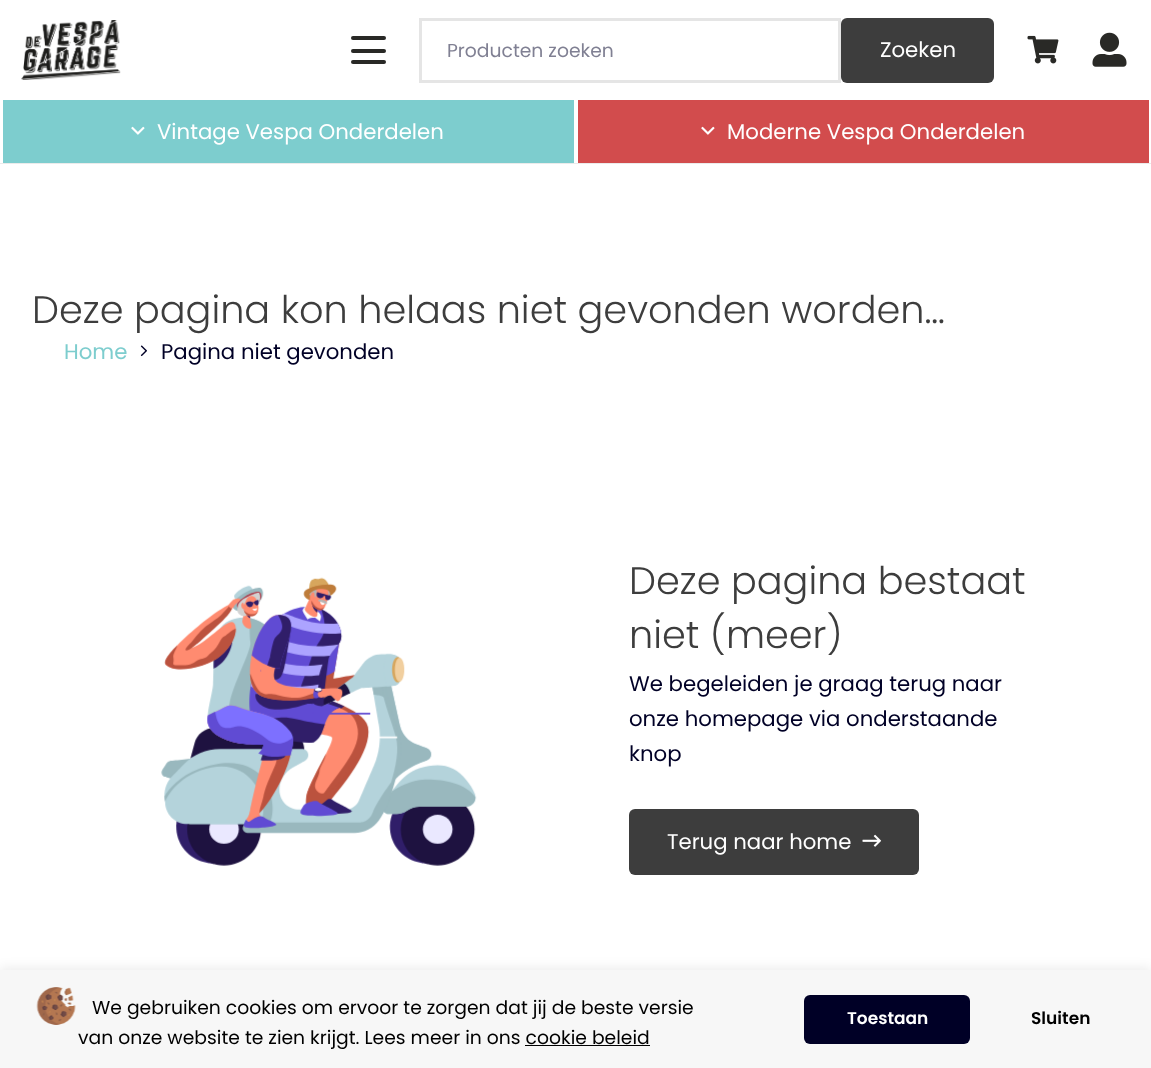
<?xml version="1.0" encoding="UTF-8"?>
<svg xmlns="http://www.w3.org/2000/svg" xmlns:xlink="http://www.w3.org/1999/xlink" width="1151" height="1068">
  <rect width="100%" height="100%" fill="#ffffff" />
  <image x="21" y="20" width="100" height="60" xlink:href="image1.png" />
  <rect x="351" y="49" width="35" height="4" rx="2" fill="#292926" />
  <rect x="351" y="36" width="35" height="4" rx="2" fill="#292926" />
  <rect x="351" y="60" width="35" height="4" rx="2" fill="#292926" />
  <rect x="420.5" y="19.5" width="419" height="62" fill="none" stroke="#e5e5e5" stroke-width="3" />
  <rect x="841" y="18" width="153" height="65" rx="6" fill="#3d3d3d" />
  <image x="1027" y="35" width="32" height="29" xlink:href="image2.png" />
  <image x="1092" y="32" width="35" height="35" xlink:href="image3.png" />
  <rect y="163" width="1151" height="1" fill="#ebebeb" />
  <rect x="3" y="100" width="571" height="63" fill="#7dcdce" />
  <image x="131" y="126" width="14" height="9" xlink:href="image4.png" />
  <rect x="578" y="100" width="571" height="63" fill="#d24c4d" />
  <image x="701" y="126" width="14" height="9" xlink:href="image5.png" />
  <image x="140" y="345" width="7" height="12" xlink:href="image6.png" />
  <image x="161" y="577" width="316" height="289" xlink:href="image7.png" />
  <rect x="629" y="809" width="290" height="66" rx="6" fill="#3d3d3d" />
  <image x="862" y="834" width="20" height="13" xlink:href="image8.png" />
  <rect y="968" width="1151" height="98" fill="#000000" fill-opacity="0.08" filter="blur(6px)" />
  <rect y="970" width="1151" height="98" fill="#f7f7f7" />
  <image x="36" y="987" width="40" height="38" xlink:href="image9.png" />
  <rect x="525" y="1045" width="125" height="1" fill="#000000" />
  <rect x="804" y="995" width="166" height="49" rx="6" fill="#000026" />
  <text x="447" y="57" style="font-family: Poppins; font-size: 18.75px; fill: #808093">Producten zoeken</text>
  <text x="880" y="57" style="font-family: Poppins; font-size: 21.25px; fill: #ffffff">Zoeken</text>
  <text x="157" y="139" style="font-family: Poppins; font-size: 21.25px; fill: #ffffff">Vintage Vespa Onderdelen</text>
  <text x="727" y="139" style="font-family: Poppins; font-size: 21.25px; fill: #ffffff">Moderne Vespa Onderdelen</text>
  <text x="32" y="323" style="font-family: Poppins; font-size: 38.25px; font-weight: 300; fill: #3d3d3d">Deze pagina kon helaas niet gevonden worden…</text>
  <text x="64" y="359" style="font-family: Poppins; font-size: 21.25px; fill: #7dcdce">Home</text>
  <text x="161" y="359" style="font-family: Poppins; font-size: 21.25px; fill: #000026">Pagina niet gevonden</text>
  <text x="629" y="594" style="font-family: Poppins; font-size: 38.25px; font-weight: 300; fill: #3d3d3d">Deze pagina bestaat</text>
  <text x="629" y="648" style="font-family: Poppins; font-size: 38.25px; font-weight: 300; fill: #3d3d3d">niet (meer)</text>
  <text x="629" y="691" style="font-family: Poppins; font-size: 21.25px; fill: #000026">We begeleiden je graag terug naar</text>
  <text x="629" y="726" style="font-family: Poppins; font-size: 21.25px; fill: #000026">onze homepage via onderstaande</text>
  <text x="629" y="761" style="font-family: Poppins; font-size: 21.25px; fill: #000026">knop</text>
  <text x="667" y="849" style="font-family: Poppins; font-size: 21.25px; fill: #ffffff">Terug naar home</text>
  <text x="92" y="1014" style="font-family: Poppins; font-size: 18.75px; fill: #000000">We gebruiken cookies om ervoor te zorgen dat jij de beste versie</text>
  <text x="78" y="1044" style="font-family: Poppins; font-size: 18.75px; fill: #000000">van onze website te zien krijgt. Lees meer in ons cookie beleid</text>
  <text x="847" y="1024" style="font-family: Poppins; font-size: 17px; font-weight: 600; fill: #ffffff">Toestaan</text>
  <text x="1031" y="1024" style="font-family: Poppins; font-size: 17px; font-weight: 600; fill: #000000">Sluiten</text>
</svg>
